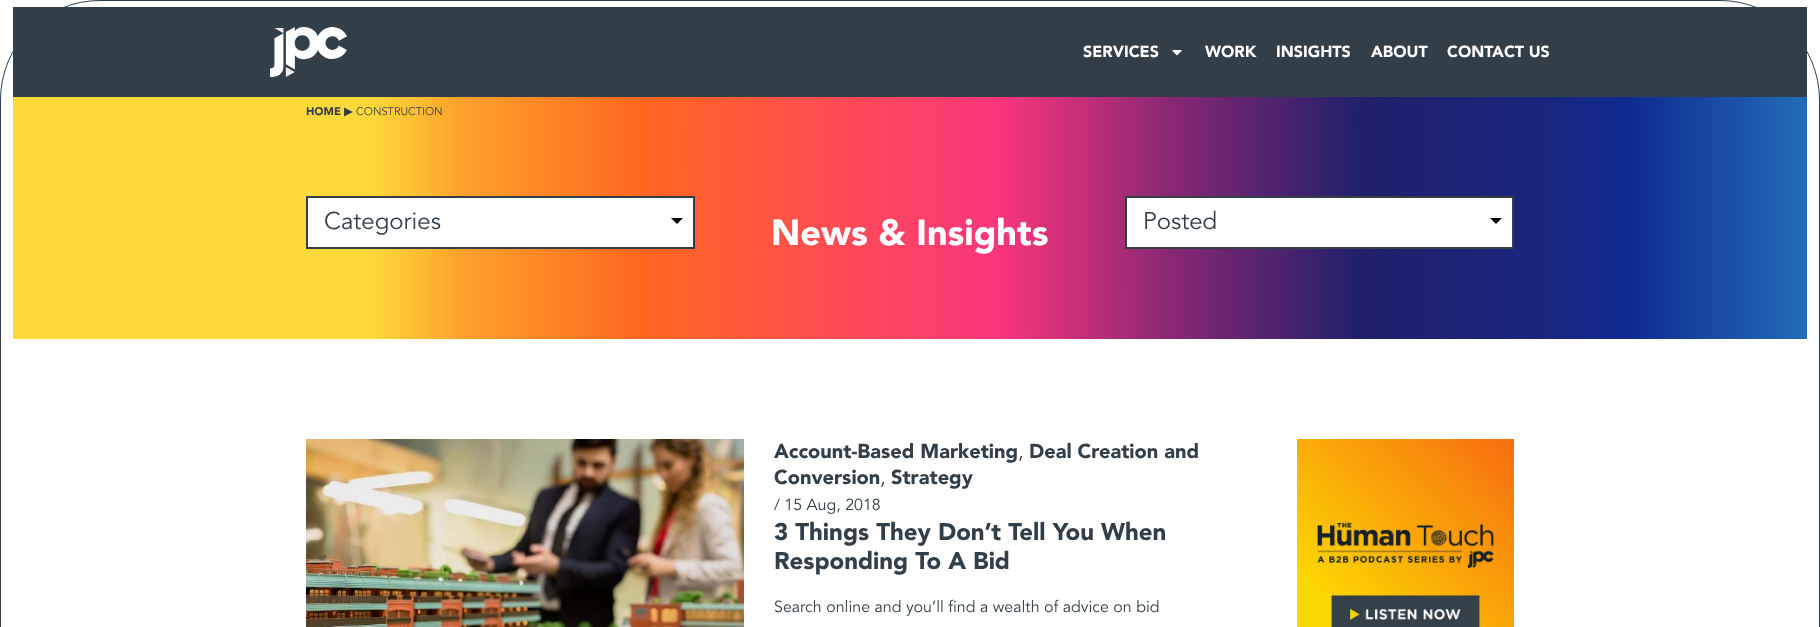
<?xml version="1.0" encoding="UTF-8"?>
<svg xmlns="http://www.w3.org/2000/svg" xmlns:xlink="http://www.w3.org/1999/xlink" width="1820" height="627">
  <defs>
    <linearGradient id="g1" gradientUnits="userSpaceOnUse" x1="13" y1="112" x2="1807" y2="111"><stop offset="0.2" stop-color="#ffd939" /><stop offset="0.25" stop-color="#ffa12b" /><stop offset="0.35" stop-color="#ff671f" /><stop offset="0.45" stop-color="#ff4e50" /><stop offset="0.55" stop-color="#f9357c" /><stop offset="0.65" stop-color="#842773" /><stop offset="0.75" stop-color="#21206a" /><stop offset="0.85" stop-color="#19257c" /><stop offset="0.9" stop-color="#0f2a90" /><stop offset="1" stop-color="#226db8" /></linearGradient>
    <linearGradient id="g2" gradientUnits="userSpaceOnUse" x1="13" y1="233" x2="1807" y2="232"><stop offset="0.2" stop-color="#ffd939" /><stop offset="0.25" stop-color="#ffa12b" /><stop offset="0.35" stop-color="#ff671f" /><stop offset="0.45" stop-color="#ff4e50" /><stop offset="0.55" stop-color="#f9357c" /><stop offset="0.65" stop-color="#842773" /><stop offset="0.75" stop-color="#21206a" /><stop offset="0.85" stop-color="#19257c" /><stop offset="0.9" stop-color="#0f2a90" /><stop offset="1" stop-color="#226db8" /></linearGradient>
  </defs>
  <rect width="100%" height="100%" fill="#ffffff" />
  <rect x="0.5" y="0.5" width="1819" height="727" rx="99.5" fill="none" stroke="#323e48" />
  <rect x="13" y="7" width="1794" height="90" fill="#323e48" />
  <image x="270" y="27" width="77" height="50" xlink:href="image1.png" />
  <image x="1172" y="50" width="10" height="6" xlink:href="image2.png" />
  <rect x="13" y="97" width="1794" height="29" fill="url(#g1)" />
  <rect x="13" y="126" width="1794" height="213" fill="url(#g2)" />
  <rect x="307" y="197" width="387" height="51" fill="#ffffff" stroke="#323e48" stroke-width="2" />
  <path d="M 671 218 h 12 l -6 6 z" fill="#000000" />
  <rect x="1126" y="197" width="387" height="51" fill="#ffffff" stroke="#323e48" stroke-width="2" />
  <path d="M 1490 218 h 12 l -6 6 z" fill="#000000" />
  <image x="306" y="439" width="438" height="188" xlink:href="image3.png" />
  <image x="1297" y="439" width="217" height="188" xlink:href="image4.png" />
  <text x="1083" y="57" style="font-family: 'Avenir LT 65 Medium'; font-size: 16px; font-weight: 900; fill: #ffffff">SERVICES</text>
  <text x="1205" y="57" style="font-family: 'Avenir LT 65 Medium'; font-size: 16px; font-weight: 900; fill: #ffffff">WORK</text>
  <text x="1276" y="57" style="font-family: 'Avenir LT 65 Medium'; font-size: 16px; font-weight: 900; fill: #ffffff">INSIGHTS</text>
  <text x="1371" y="57" style="font-family: 'Avenir LT 65 Medium'; font-size: 16px; font-weight: 900; fill: #ffffff">ABOUT</text>
  <text x="1447" y="57" style="font-family: 'Avenir LT 65 Medium'; font-size: 16px; font-weight: 900; fill: #ffffff">CONTACT US</text>
  <text x="306" y="115" style="font-family: 'Avenir LT 65 Medium'; font-size: 11px; font-weight: 900; fill: #323e48">HOME</text>
  <text x="344" y="115" style="font-family: DejaVu Sans; font-size: 11px; font-weight: bold; fill: #323e48">▶</text>
  <text x="356" y="115" style="font-family: 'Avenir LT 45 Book'; font-size: 11px; fill: #323e48">CONSTRUCTION</text>
  <text x="324" y="229" style="font-family: 'Avenir LT 45 Book'; font-size: 24px; fill: #323e48">Categories</text>
  <text x="771" y="245" style="font-family: 'Avenir LT 65 Medium'; font-size: 36px; font-weight: 900; fill: #ffffff">News &amp; Insights</text>
  <text x="1143" y="229" style="font-family: 'Avenir LT 45 Book'; font-size: 24px; fill: #323e48">Posted</text>
  <text x="774" y="458" style="font-family: 'Avenir LT 65 Medium'; font-size: 20px; font-weight: 900; fill: #323e48">Account-Based Marketing</text>
  <text x="1018" y="458" style="font-family: 'Avenir LT 45 Book'; font-size: 20px; fill: #323e48">,</text>
  <text x="1029" y="458" style="font-family: 'Avenir LT 65 Medium'; font-size: 20px; font-weight: 900; fill: #323e48">Deal Creation and</text>
  <text x="774" y="484" style="font-family: 'Avenir LT 65 Medium'; font-size: 20px; font-weight: 900; fill: #323e48">Conversion</text>
  <text x="880" y="484" style="font-family: 'Avenir LT 45 Book'; font-size: 20px; fill: #323e48">,</text>
  <text x="891" y="484" style="font-family: 'Avenir LT 65 Medium'; font-size: 20px; font-weight: 900; fill: #323e48">Strategy</text>
  <text x="774" y="510" style="font-family: 'Avenir LT 45 Book'; font-size: 16px; fill: #323e48">/ 15 Aug, 2018</text>
  <text x="774" y="540" style="font-family: 'Avenir LT 65 Medium'; font-size: 24px; font-weight: 900; fill: #323e48">3 Things They Don’t Tell You When</text>
  <text x="774" y="569" style="font-family: 'Avenir LT 65 Medium'; font-size: 24px; font-weight: 900; fill: #323e48">Responding To A Bid</text>
  <text x="774" y="612" style="font-family: 'Avenir LT 45 Book'; font-size: 16px; fill: #323e48">Search online and you’ll find a wealth of advice on bid</text>
</svg>
